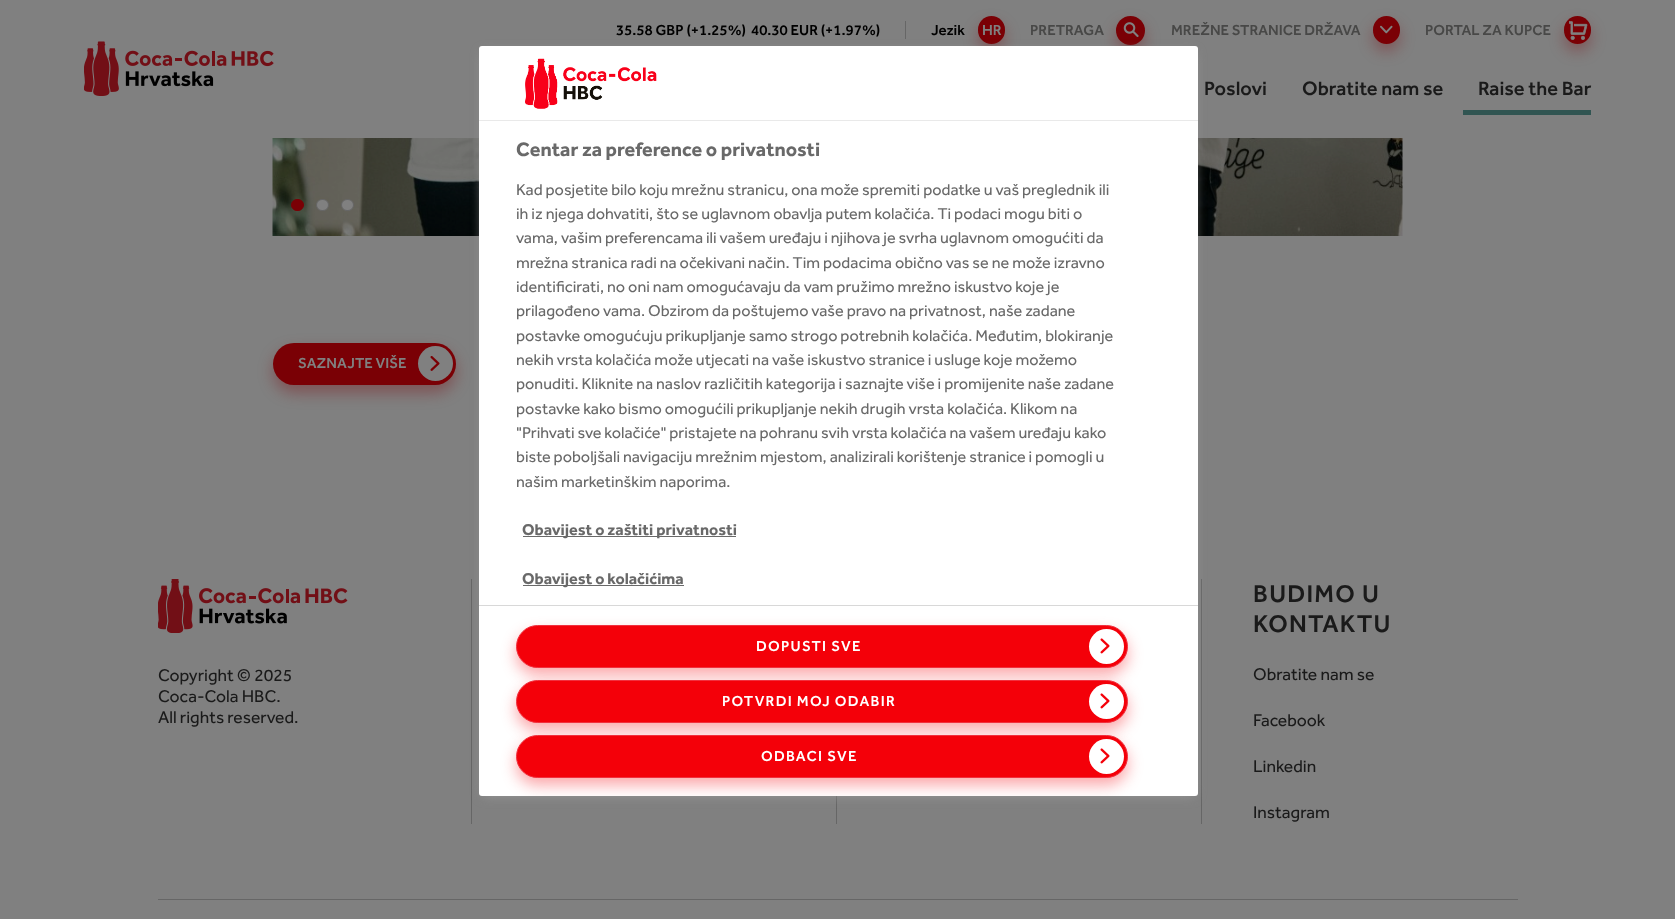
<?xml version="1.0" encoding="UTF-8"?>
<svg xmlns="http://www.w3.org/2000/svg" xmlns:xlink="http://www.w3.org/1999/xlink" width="1675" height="919">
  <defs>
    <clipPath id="clip1"><rect x="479" y="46" width="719" height="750" rx="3" /></clipPath>
  </defs>
  <rect width="100%" height="100%" fill="#808080" />
  <rect x="905" y="21" width="1" height="18" fill="#666666" />
  <rect x="978" y="24" width="27" height="27" rx="13.5" fill="#7a0005" fill-opacity="0.35" filter="blur(7.5px)" />
  <rect x="978" y="16" width="27" height="28" rx="13.5" fill="#7a0005" />
  <rect x="1116" y="24" width="29" height="29" rx="14.5" fill="#7a0005" fill-opacity="0.35" filter="blur(7.5px)" />
  <circle cx="1130.5" cy="30.5" r="14.5" fill="#7a0005" />
  <image x="1123" y="22" width="16" height="15" xlink:href="image1.png" />
  <rect x="1373" y="24" width="27" height="27" rx="13.5" fill="#7a0005" fill-opacity="0.35" filter="blur(7.5px)" />
  <rect x="1373" y="16" width="27" height="28" rx="13.5" fill="#7a0005" />
  <image x="1380" y="25" width="13" height="9" xlink:href="image2.png" />
  <rect x="1564" y="24" width="27" height="27" rx="13.5" fill="#7a0005" fill-opacity="0.35" filter="blur(7.5px)" />
  <rect x="1564" y="16" width="27" height="28" rx="13.5" fill="#7a0005" />
  <image x="1569" y="21" width="19" height="19" xlink:href="image3.png" />
  <image x="84" y="41" width="190" height="55" xlink:href="image4.png" />
  <rect x="1463" y="110" width="128" height="5" fill="#315552" />
  <image x="272" y="138" width="1131" height="98" xlink:href="image5.png" />
  <rect x="291.5" y="199.5" width="12" height="11" rx="5.5" fill="#7a0005" stroke="#7a0005" />
  <rect x="316.5" y="199.5" width="12" height="11" rx="5.5" fill="#808080" stroke="#666666" />
  <rect x="341.5" y="199.5" width="12" height="11" rx="5.5" fill="#808080" stroke="#666666" />
  <rect x="273" y="350" width="183" height="43" rx="21.5" fill="#7a0005" fill-opacity="0.35" filter="blur(7.5px)" />
  <rect x="273" y="343" width="183" height="42" rx="21" fill="#7a0005" />
  <circle cx="435.5" cy="363.5" r="17.5" fill="#808080" />
  <image x="430" y="356" width="10" height="15" xlink:href="image6.png" />
  <rect x="471" y="579" width="1" height="245" fill="#666666" />
  <rect x="1201" y="579" width="1" height="245" fill="#666666" />
  <rect x="836" y="796" width="1" height="28" fill="#666666" />
  <rect x="483" y="53" width="711" height="742" fill="#999999" filter="blur(6px)" />
  <rect x="479" y="46" width="719" height="750" rx="3" fill="#ffffff" />
  <rect x="479" y="120" width="719" height="1" fill="#e9e9e9" />
  <image x="525" y="58" width="132" height="51" xlink:href="image7.png" />
  <rect x="523" y="536" width="213" height="1" fill="#696969" />
  <rect x="523" y="585" width="161" height="1" fill="#696969" />
  <rect x="479" y="605" width="719" height="1" fill="#d8d8d8" />
  <rect x="516" y="633" width="612" height="42" rx="21" fill="#f40009" fill-opacity="0.35" filter="blur(7.5px)" />
  <rect x="516.5" y="625.5" width="611" height="42" rx="21" fill="#f40009" stroke="#f1303e" />
  <circle cx="1106.5" cy="646.5" r="17.5" fill="#ffffff" />
  <image x="1100" y="638" width="10" height="16" xlink:href="image8.png" />
  <rect x="516" y="688" width="612" height="42" rx="21" fill="#f40009" fill-opacity="0.35" filter="blur(7.5px)" />
  <rect x="516.5" y="680.5" width="611" height="42" rx="21" fill="#f40009" stroke="#f1303e" />
  <circle cx="1106.5" cy="701.5" r="17.5" fill="#ffffff" />
  <image x="1100" y="693" width="10" height="16" xlink:href="image8.png" />
  <g clip-path="url(#clip1)">
    <rect x="516" y="743" width="612" height="42" rx="21" fill="#f40009" fill-opacity="0.35" filter="blur(7.5px)" />
  </g>
  <rect x="516.5" y="735.5" width="611" height="42" rx="21" fill="#f40009" stroke="#f1303e" />
  <circle cx="1106.5" cy="756.5" r="17.5" fill="#ffffff" />
  <image x="1100" y="748" width="10" height="16" xlink:href="image8.png" />
  <image x="158" y="579" width="190" height="54" xlink:href="image9.png" />
  <rect x="158" y="899" width="1360" height="1" fill="#666666" />
  <text x="616" y="35" style="font-family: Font; font-size: 15px; font-weight: 500; fill: #000000">35.58 GBP (+1.25%)</text>
  <text x="751" y="35" style="font-family: Font; font-size: 15px; font-weight: 500; fill: #000000">40.30 EUR (+1.97%)</text>
  <text x="931" y="35" style="font-family: Font; font-size: 15px; font-weight: 500; fill: #000000">Jezik</text>
  <text x="982" y="35" style="font-family: Font; font-size: 15px; font-weight: 500; fill: #808080">HR</text>
  <text x="1030" y="35" style="font-family: Font; font-size: 15px; font-weight: 500; fill: #484847">PRETRAGA</text>
  <text x="1171" y="35" style="font-family: Font; font-size: 15px; font-weight: 500; fill: #484847">MREŽNE STRANICE DRŽAVA</text>
  <text x="1425" y="35" style="font-family: Font; font-size: 15px; font-weight: 500; fill: #484847">PORTAL ZA KUPCE</text>
  <text x="1204" y="95" style="font-family: Font; font-size: 20px; font-weight: 500; fill: #1a1a1a">Poslovi</text>
  <text x="1302" y="95" style="font-family: Font; font-size: 20px; font-weight: 500; fill: #1a1a1a">Obratite nam se</text>
  <text x="1478" y="95" style="font-family: Font; font-size: 20px; font-weight: 500; fill: #1a1a1a">Raise the Bar</text>
  <text x="298" y="368" style="font-family: Font; font-size: 15px; font-weight: 500; fill: #808080">SAZNAJTE VIŠE</text>
  <text x="516" y="156" style="font-family: Font; font-size: 20px; font-weight: bold; fill: #696969">Centar za preference o privatnosti</text>
  <text x="516" y="195" style="font-family: Font; font-size: 16.25px; fill: #696969">Kad posjetite bilo koju mrežnu stranicu, ona može spremiti podatke u vaš preglednik ili</text>
  <text x="516" y="219" style="font-family: Font; font-size: 16.25px; fill: #696969">ih iz njega dohvatiti, što se uglavnom obavlja putem kolačića. Ti podaci mogu biti o</text>
  <text x="516" y="243" style="font-family: Font; font-size: 16.25px; fill: #696969">vama, vašim preferencama ili vašem uređaju i njihova je svrha uglavnom omogućiti da</text>
  <text x="516" y="268" style="font-family: Font; font-size: 16.25px; fill: #696969">mrežna stranica radi na očekivani način. Tim podacima obično vas se ne može izravno</text>
  <text x="516" y="292" style="font-family: Font; font-size: 16.25px; fill: #696969">identificirati, no oni nam omogućavaju da vam pružimo mrežno iskustvo koje je</text>
  <text x="516" y="316" style="font-family: Font; font-size: 16.25px; fill: #696969">prilagođeno vama. Obzirom da poštujemo vaše pravo na privatnost, naše zadane</text>
  <text x="516" y="341" style="font-family: Font; font-size: 16.25px; fill: #696969">postavke omogućuju prikupljanje samo strogo potrebnih kolačića. Međutim, blokiranje</text>
  <text x="516" y="365" style="font-family: Font; font-size: 16.25px; fill: #696969">nekih vrsta kolačića može utjecati na vaše iskustvo stranice i usluge koje možemo</text>
  <text x="516" y="389" style="font-family: Font; font-size: 16.25px; fill: #696969">ponuditi. Kliknite na naslov različitih kategorija i saznajte više i promijenite naše zadane</text>
  <text x="516" y="414" style="font-family: Font; font-size: 16.25px; fill: #696969">postavke kako bismo omogućili prikupljanje nekih drugih vrsta kolačića. Klikom na</text>
  <text x="516" y="438" style="font-family: Font; font-size: 16.25px; fill: #696969">"Prihvati sve kolačiće" pristajete na pohranu svih vrsta kolačića na vašem uređaju kako</text>
  <text x="516" y="462" style="font-family: Font; font-size: 16.25px; fill: #696969">biste poboljšali navigaciju mrežnim mjestom, analizirali korištenje stranice i pomogli u</text>
  <text x="516" y="487" style="font-family: Font; font-size: 16.25px; fill: #696969">našim marketinškim naporima.</text>
  <text x="522" y="535" style="font-family: Font; font-size: 16.25px; font-weight: bold; fill: #696969">Obavijest o zaštiti privatnosti</text>
  <text x="522" y="584" style="font-family: Font; font-size: 16.25px; font-weight: bold; fill: #696969">Obavijest o kolačićima</text>
  <text x="756" y="651" style="font-family: Font; font-size: 15px; font-weight: 500; letter-spacing: 1.25px; fill: #ffffff">DOPUSTI SVE</text>
  <text x="722" y="706" style="font-family: Font; font-size: 15px; font-weight: 500; letter-spacing: 1.25px; fill: #ffffff">POTVRDI MOJ ODABIR</text>
  <text x="761" y="761" style="font-family: Font; font-size: 15px; font-weight: 500; letter-spacing: 1.25px; fill: #ffffff">ODBACI SVE</text>
  <text x="158" y="681" style="font-family: Font; font-size: 17.5px; fill: #1a1a1a">Copyright © 2025</text>
  <text x="158" y="702" style="font-family: Font; font-size: 17.5px; fill: #1a1a1a">Coca-Cola HBC.</text>
  <text x="158" y="723" style="font-family: Font; font-size: 17.5px; fill: #1a1a1a">All rights reserved.</text>
  <text x="1253" y="602" style="font-family: Font; font-size: 25px; font-weight: 500; letter-spacing: 1.25px; fill: #1a1a1a">BUDIMO U</text>
  <text x="1253" y="632" style="font-family: Font; font-size: 25px; font-weight: 500; letter-spacing: 1.25px; fill: #1a1a1a">KONTAKTU</text>
  <text x="1253" y="680" style="font-family: Font; font-size: 17.5px; fill: #1a1a1a">Obratite nam se</text>
  <text x="1253" y="726" style="font-family: Font; font-size: 17.5px; fill: #1a1a1a">Facebook</text>
  <text x="1253" y="772" style="font-family: Font; font-size: 17.5px; fill: #1a1a1a">Linkedin</text>
  <text x="1253" y="818" style="font-family: Font; font-size: 17.5px; fill: #1a1a1a">Instagram</text>
</svg>
